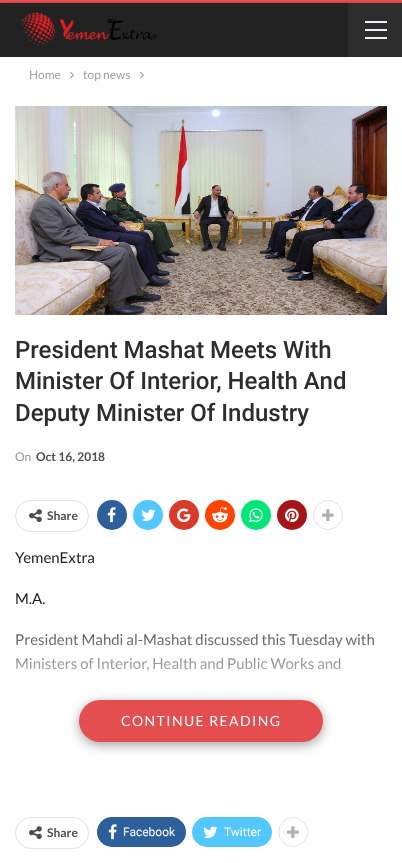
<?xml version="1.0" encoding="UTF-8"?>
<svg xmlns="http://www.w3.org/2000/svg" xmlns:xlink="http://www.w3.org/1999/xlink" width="402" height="863">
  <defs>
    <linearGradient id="g1" gradientUnits="userSpaceOnUse" x1="201" y1="545" x2="201" y2="715"><stop offset="0.35" stop-color="#ffffff" stop-opacity="0" /><stop offset="1" stop-color="#ffffff" /></linearGradient>
  </defs>
  <rect width="100%" height="100%" fill="#e44e4f" />
  <rect y="3" width="402" height="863" fill="#000000" fill-opacity="0.27" filter="blur(1px)" />
  <rect y="57" width="402" height="806" fill="#ffffff" />
  <rect y="3" width="348" height="54" fill="#222222" />
  <image x="21" y="12" width="136" height="34" xlink:href="image1.png" />
  <rect x="349" y="3" width="53" height="54" fill="#2d2d2d" />
  <rect x="348" y="3" width="1" height="54" fill="#2a2a2a" />
  <rect x="365" y="29" width="22" height="2" fill="#ecf0f1" />
  <rect x="365" y="21" width="22" height="2" fill="#ecf0f1" />
  <rect x="365" y="37" width="22" height="2" fill="#ecf0f1" />
  <image x="70" y="71" width="4" height="8" xlink:href="image2.png" />
  <image x="140" y="71" width="4" height="8" xlink:href="image2.png" />
  <image x="15" y="106" width="372" height="209" xlink:href="image3.png" />
  <rect x="15.5" y="500.5" width="73" height="31" rx="15.5" fill="none" stroke="#e2e2e2" />
  <image x="29" y="509" width="13" height="14" xlink:href="image4.png" />
  <circle cx="112" cy="515" r="15" fill="#2d5f9a" />
  <image x="107" y="507" width="9" height="16" xlink:href="image5.png" />
  <circle cx="148" cy="515" r="15" fill="#53c7ff" />
  <image x="141" y="509" width="15" height="12" xlink:href="image6.png" />
  <circle cx="184" cy="515" r="15" fill="#d93b2b" />
  <image x="177" y="508" width="14" height="15" xlink:href="image7.png" />
  <circle cx="220" cy="515" r="15" fill="#ff4500" />
  <image x="212" y="507" width="16" height="16" xlink:href="image8.png" />
  <circle cx="256" cy="515" r="15" fill="#00e676" />
  <image x="249" y="508" width="14" height="15" xlink:href="image9.png" />
  <circle cx="292" cy="515" r="15" fill="#a41719" />
  <image x="285" y="508" width="14" height="15" xlink:href="image10.png" />
  <circle cx="328" cy="515" r="14.5" fill="none" stroke="#e2e2e2" />
  <image x="322" y="509" width="12" height="12" xlink:href="image11.png" />
  <rect x="79" y="703" width="244" height="42" rx="21" fill="#000000" fill-opacity="0.37" filter="blur(6px)" />
  <rect x="79" y="700" width="244" height="42" rx="21" fill="#e44e4f" />
  <rect x="15.5" y="817.5" width="73" height="31" rx="15.5" fill="none" stroke="#e2e2e2" />
  <image x="29" y="826" width="13" height="14" xlink:href="image4.png" />
  <rect x="97" y="817" width="89" height="30" rx="15" fill="#2d5f9a" />
  <image x="108" y="824" width="9" height="16" xlink:href="image5.png" />
  <rect x="192" y="817" width="80" height="30" rx="15" fill="#53c7ff" />
  <image x="203" y="826" width="15" height="12" xlink:href="image6.png" />
  <circle cx="293" cy="832" r="14.5" fill="none" stroke="#e2e2e2" />
  <image x="287" y="826" width="12" height="12" xlink:href="image11.png" />
  <text x="29" y="79" style="font-family: Lato; font-size: 12px; fill: #9e9e9e">Home</text>
  <text x="83" y="79" style="font-family: Lato; font-size: 12px; fill: #9e9e9e">top news</text>
  <text x="15" y="358" style="font-family: Roboto; font-size: 24px; font-weight: 500; fill: #2d2d2d">President Mashat Meets With</text>
  <text x="15" y="389" style="font-family: Roboto; font-size: 24px; font-weight: 500; fill: #2d2d2d">Minister Of Interior, Health And</text>
  <text x="15" y="421" style="font-family: Roboto; font-size: 24px; font-weight: 500; fill: #2d2d2d">Deputy Minister Of Industry</text>
  <text x="15" y="461" style="font-family: Lato; font-size: 12px; fill: #8f8f8f">On</text>
  <text x="36" y="461" style="font-family: Lato; font-size: 12px; font-weight: bold; fill: #4d4d4d">Oct 16, 2018</text>
  <text x="47" y="520" style="font-family: Lato; font-size: 12px; font-weight: bold; fill: #4d4d4d">Share</text>
  <text x="15" y="563" style="font-family: Lato; font-size: 15px; fill: #222222">YemenExtra</text>
  <text x="15" y="604" style="font-family: Lato; font-size: 15px; fill: #222222">M.A.</text>
  <text x="15" y="645" style="font-family: Lato; font-size: 15px; fill: #222222">President Mahdi al-Mashat discussed this Tuesday with</text>
  <text x="15" y="669" style="font-family: Lato; font-size: 15px; fill: #222222">Ministers of Interior, Health and Public Works and</text>
  <rect x="16" y="633" width="358" height="38" fill="url(#g1)" />
  <text x="121" y="726" style="font-family: Lato; font-size: 14px; letter-spacing: 1.4px; fill: #ffffff">CONTINUE READING</text>
  <text x="47" y="837" style="font-family: Lato; font-size: 12px; font-weight: bold; fill: #4d4d4d">Share</text>
  <text x="123" y="836" style="font-family: Roboto; font-size: 12px; fill: #ffffff">Facebook</text>
  <text x="224" y="836" style="font-family: Roboto; font-size: 12px; fill: #ffffff">Twitter</text>
</svg>
